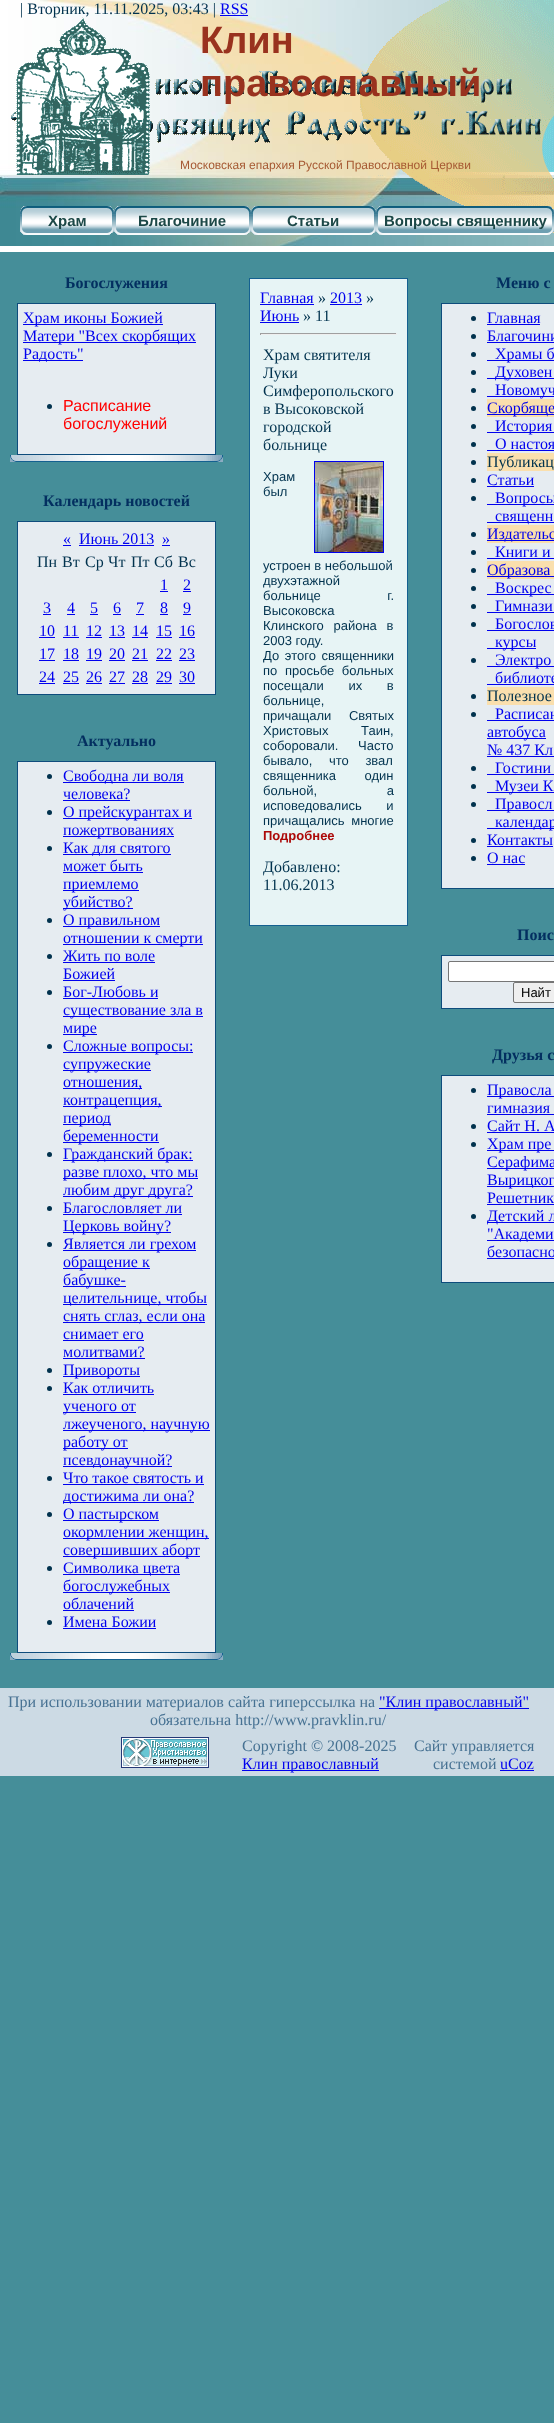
<?xml version="1.0" encoding="UTF-8"?>
<svg xmlns="http://www.w3.org/2000/svg" xmlns:xlink="http://www.w3.org/1999/xlink" width="554" height="2423">
  <rect width="100%" height="100%" fill="#458e99" />
  <image x="0" y="0" width="554" height="246" xlink:href="image1.png" />
  <image x="11" y="0" width="543" height="233" xlink:href="image2.png" />
  <rect x="220" y="15" width="28" height="1" fill="#0000ee" />
  <image x="20" y="206" width="7" height="29" xlink:href="image4.png" />
  <image x="27" y="206" width="80" height="29" xlink:href="image5.png" />
  <image x="107" y="206" width="7" height="29" xlink:href="image6.png" />
  <image x="114" y="206" width="7" height="29" xlink:href="image7.png" />
  <image x="121" y="206" width="123" height="29" xlink:href="image8.png" />
  <image x="244" y="206" width="7" height="29" xlink:href="image9.png" />
  <image x="251" y="206" width="7" height="29" xlink:href="image10.png" />
  <image x="258" y="206" width="111" height="29" xlink:href="image11.png" />
  <image x="369" y="206" width="7" height="29" xlink:href="image12.png" />
  <image x="376" y="206" width="7" height="29" xlink:href="image13.png" />
  <image x="383" y="206" width="164" height="29" xlink:href="image14.png" />
  <image x="547" y="206" width="7" height="29" xlink:href="image15.png" />
  <rect y="246" width="554" height="6" fill="#ffffff" />
  <rect x="17.5" y="303.5" width="198" height="151" fill="#e6ecf1" stroke="#0e4c7c" />
  <rect x="23" y="324" width="140" height="1" fill="#0000ee" />
  <rect x="23" y="342" width="173" height="1" fill="#0000ee" />
  <rect x="23" y="360" width="60" height="1" fill="#0000ee" />
  <circle cx="49.5" cy="406.5" r="2.5" fill="#01324e" />
  <image x="10" y="455" width="213" height="7" xlink:href="image16.png" />
  <rect x="17.5" y="521.5" width="198" height="173" fill="#e6ecf1" stroke="#0e4c7c" />
  <rect x="63" y="545" width="8" height="1" fill="#0000ee" />
  <rect x="79" y="545" width="75" height="1" fill="#0000ee" />
  <rect x="162" y="545" width="8" height="1" fill="#0000ee" />
  <rect x="160" y="591" width="8" height="1" fill="#0000ee" />
  <rect x="183" y="591" width="8" height="1" fill="#0000ee" />
  <rect x="43" y="614" width="8" height="1" fill="#0000ee" />
  <rect x="67" y="614" width="8" height="1" fill="#0000ee" />
  <rect x="90" y="614" width="8" height="1" fill="#0000ee" />
  <rect x="113" y="614" width="8" height="1" fill="#0000ee" />
  <rect x="136" y="614" width="8" height="1" fill="#0000ee" />
  <rect x="160" y="614" width="8" height="1" fill="#0000ee" />
  <rect x="183" y="614" width="8" height="1" fill="#0000ee" />
  <rect x="39" y="637" width="16" height="1" fill="#0000ee" />
  <rect x="63" y="637" width="16" height="1" fill="#0000ee" />
  <rect x="86" y="637" width="16" height="1" fill="#0000ee" />
  <rect x="109" y="637" width="16" height="1" fill="#0000ee" />
  <rect x="132" y="637" width="16" height="1" fill="#0000ee" />
  <rect x="156" y="637" width="16" height="1" fill="#0000ee" />
  <rect x="179" y="637" width="16" height="1" fill="#0000ee" />
  <rect x="39" y="660" width="16" height="1" fill="#0000ee" />
  <rect x="63" y="660" width="16" height="1" fill="#0000ee" />
  <rect x="86" y="660" width="16" height="1" fill="#0000ee" />
  <rect x="109" y="660" width="16" height="1" fill="#0000ee" />
  <rect x="132" y="660" width="16" height="1" fill="#0000ee" />
  <rect x="156" y="660" width="16" height="1" fill="#0000ee" />
  <rect x="179" y="660" width="16" height="1" fill="#0000ee" />
  <rect x="39" y="683" width="16" height="1" fill="#0000ee" />
  <rect x="63" y="683" width="16" height="1" fill="#0000ee" />
  <rect x="86" y="683" width="16" height="1" fill="#0000ee" />
  <rect x="109" y="683" width="16" height="1" fill="#0000ee" />
  <rect x="132" y="683" width="16" height="1" fill="#0000ee" />
  <rect x="156" y="683" width="16" height="1" fill="#0000ee" />
  <rect x="179" y="683" width="16" height="1" fill="#0000ee" />
  <rect x="17.5" y="761.5" width="198" height="891" fill="#e6ecf1" stroke="#0e4c7c" />
  <circle cx="49.5" cy="776.5" r="2.5" fill="#01324e" />
  <rect x="63" y="782" width="121" height="1" fill="#0000ee" />
  <rect x="63" y="800" width="67" height="1" fill="#0000ee" />
  <circle cx="49.5" cy="812.5" r="2.5" fill="#01324e" />
  <rect x="63" y="818" width="129" height="1" fill="#0000ee" />
  <rect x="63" y="836" width="111" height="1" fill="#0000ee" />
  <circle cx="49.5" cy="848.5" r="2.5" fill="#01324e" />
  <rect x="63" y="854" width="108" height="1" fill="#0000ee" />
  <rect x="63" y="872" width="80" height="1" fill="#0000ee" />
  <rect x="63" y="890" width="76" height="1" fill="#0000ee" />
  <rect x="63" y="908" width="70" height="1" fill="#0000ee" />
  <circle cx="49.5" cy="920.5" r="2.5" fill="#01324e" />
  <rect x="63" y="926" width="97" height="1" fill="#0000ee" />
  <rect x="63" y="944" width="140" height="1" fill="#0000ee" />
  <circle cx="49.5" cy="956.5" r="2.5" fill="#01324e" />
  <rect x="63" y="962" width="92" height="1" fill="#0000ee" />
  <rect x="63" y="980" width="52" height="1" fill="#0000ee" />
  <circle cx="49.5" cy="992.5" r="2.5" fill="#01324e" />
  <rect x="63" y="998" width="95" height="1" fill="#0000ee" />
  <rect x="63" y="1016" width="140" height="1" fill="#0000ee" />
  <rect x="63" y="1034" width="34" height="1" fill="#0000ee" />
  <circle cx="49.5" cy="1046.5" r="2.5" fill="#01324e" />
  <rect x="63" y="1052" width="130" height="1" fill="#0000ee" />
  <rect x="63" y="1070" width="88" height="1" fill="#0000ee" />
  <rect x="63" y="1088" width="79" height="1" fill="#0000ee" />
  <rect x="63" y="1106" width="99" height="1" fill="#0000ee" />
  <rect x="63" y="1124" width="48" height="1" fill="#0000ee" />
  <rect x="63" y="1142" width="96" height="1" fill="#0000ee" />
  <circle cx="49.5" cy="1154.5" r="2.5" fill="#01324e" />
  <rect x="63" y="1160" width="130" height="1" fill="#0000ee" />
  <rect x="63" y="1178" width="135" height="1" fill="#0000ee" />
  <rect x="63" y="1196" width="130" height="1" fill="#0000ee" />
  <circle cx="49.5" cy="1208.5" r="2.5" fill="#01324e" />
  <rect x="63" y="1214" width="119" height="1" fill="#0000ee" />
  <rect x="63" y="1232" width="108" height="1" fill="#0000ee" />
  <circle cx="49.5" cy="1244.5" r="2.5" fill="#01324e" />
  <rect x="63" y="1250" width="133" height="1" fill="#0000ee" />
  <rect x="63" y="1268" width="87" height="1" fill="#0000ee" />
  <rect x="63" y="1286" width="63" height="1" fill="#0000ee" />
  <rect x="63" y="1304" width="144" height="1" fill="#0000ee" />
  <rect x="63" y="1322" width="142" height="1" fill="#0000ee" />
  <rect x="63" y="1340" width="81" height="1" fill="#0000ee" />
  <rect x="63" y="1358" width="82" height="1" fill="#0000ee" />
  <circle cx="49.5" cy="1370.5" r="2.5" fill="#01324e" />
  <rect x="63" y="1376" width="77" height="1" fill="#0000ee" />
  <circle cx="49.5" cy="1388.5" r="2.5" fill="#01324e" />
  <rect x="63" y="1394" width="91" height="1" fill="#0000ee" />
  <rect x="63" y="1412" width="73" height="1" fill="#0000ee" />
  <rect x="63" y="1430" width="147" height="1" fill="#0000ee" />
  <rect x="63" y="1448" width="65" height="1" fill="#0000ee" />
  <rect x="63" y="1466" width="109" height="1" fill="#0000ee" />
  <circle cx="49.5" cy="1478.5" r="2.5" fill="#01324e" />
  <rect x="63" y="1484" width="141" height="1" fill="#0000ee" />
  <rect x="63" y="1502" width="131" height="1" fill="#0000ee" />
  <circle cx="49.5" cy="1514.5" r="2.5" fill="#01324e" />
  <rect x="63" y="1520" width="96" height="1" fill="#0000ee" />
  <rect x="63" y="1538" width="146" height="1" fill="#0000ee" />
  <rect x="63" y="1556" width="137" height="1" fill="#0000ee" />
  <circle cx="49.5" cy="1568.5" r="2.5" fill="#01324e" />
  <rect x="63" y="1574" width="117" height="1" fill="#0000ee" />
  <rect x="63" y="1592" width="107" height="1" fill="#0000ee" />
  <rect x="63" y="1610" width="71" height="1" fill="#0000ee" />
  <circle cx="49.5" cy="1622.5" r="2.5" fill="#01324e" />
  <rect x="63" y="1628" width="93" height="1" fill="#0000ee" />
  <image x="10" y="1653" width="213" height="7" xlink:href="image16.png" />
  <rect x="249.5" y="278.5" width="158" height="647" fill="#e7f4f5" stroke="#146090" />
  <rect x="260" y="304" width="54" height="1" fill="#0000ee" />
  <rect x="330" y="304" width="32" height="1" fill="#0000ee" />
  <rect x="260" y="322" width="39" height="1" fill="#0000ee" />
  <rect x="260" y="333" width="137" height="1" fill="#9f9f9f" />
  <rect x="396" y="333" width="1" height="2" fill="#eeeeee" />
  <rect x="260" y="334" width="137" height="1" fill="#eeeeee" />
  <rect x="260" y="333" width="1" height="2" fill="#9f9f9f" />
  <rect x="314.5" y="461.5" width="69" height="91" fill="none" stroke="#0000ee" />
  <image x="315" y="462" width="68" height="90" xlink:href="image17.png" />
  <rect x="441.5" y="303.5" width="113" height="585" fill="#e6ecf1" stroke="#0e4c7c" />
  <circle cx="473.5" cy="318.5" r="2.5" fill="#01324e" />
  <rect x="487" y="324" width="53" height="1" fill="#0000ee" />
  <circle cx="473.5" cy="336.5" r="2.5" fill="#01324e" />
  <rect x="487" y="342" width="67" height="1" fill="#0000ee" />
  <circle cx="473.5" cy="354.5" r="2.5" fill="#01324e" />
  <rect x="487" y="360" width="67" height="1" fill="#0000ee" />
  <circle cx="473.5" cy="372.5" r="2.5" fill="#01324e" />
  <rect x="487" y="378" width="67" height="1" fill="#0000ee" />
  <circle cx="473.5" cy="390.5" r="2.5" fill="#01324e" />
  <rect x="487" y="396" width="67" height="1" fill="#0000ee" />
  <rect x="487" y="399" width="67" height="18" fill="#fadfad" />
  <circle cx="473.5" cy="408.5" r="2.5" fill="#01324e" />
  <rect x="487" y="414" width="67" height="1" fill="#0000ee" />
  <circle cx="473.5" cy="426.5" r="2.5" fill="#01324e" />
  <rect x="487" y="432" width="67" height="1" fill="#0000ee" />
  <circle cx="473.5" cy="444.5" r="2.5" fill="#01324e" />
  <rect x="487" y="450" width="67" height="1" fill="#0000ee" />
  <rect x="487" y="453" width="67" height="18" fill="#fadfad" />
  <circle cx="473.5" cy="462.5" r="2.5" fill="#01324e" />
  <circle cx="473.5" cy="480.5" r="2.5" fill="#01324e" />
  <rect x="487" y="486" width="47" height="1" fill="#0000ee" />
  <circle cx="473.5" cy="498.5" r="2.5" fill="#01324e" />
  <rect x="487" y="504" width="67" height="1" fill="#0000ee" />
  <rect x="487" y="522" width="67" height="1" fill="#0000ee" />
  <rect x="487" y="525" width="67" height="18" fill="#fadfad" />
  <circle cx="473.5" cy="534.5" r="2.5" fill="#01324e" />
  <rect x="487" y="540" width="67" height="1" fill="#0000ee" />
  <circle cx="473.5" cy="552.5" r="2.5" fill="#01324e" />
  <rect x="487" y="558" width="67" height="1" fill="#0000ee" />
  <rect x="487" y="561" width="67" height="18" fill="#fadfad" />
  <circle cx="473.5" cy="570.5" r="2.5" fill="#01324e" />
  <rect x="487" y="576" width="67" height="1" fill="#0000ee" />
  <circle cx="473.5" cy="588.5" r="2.5" fill="#01324e" />
  <rect x="487" y="594" width="67" height="1" fill="#0000ee" />
  <circle cx="473.5" cy="606.5" r="2.5" fill="#01324e" />
  <rect x="487" y="612" width="67" height="1" fill="#0000ee" />
  <circle cx="473.5" cy="624.5" r="2.5" fill="#01324e" />
  <rect x="487" y="630" width="67" height="1" fill="#0000ee" />
  <rect x="487" y="648" width="49" height="1" fill="#0000ee" />
  <circle cx="473.5" cy="660.5" r="2.5" fill="#01324e" />
  <rect x="487" y="666" width="67" height="1" fill="#0000ee" />
  <rect x="487" y="684" width="67" height="1" fill="#0000ee" />
  <rect x="487" y="687" width="67" height="18" fill="#fadfad" />
  <circle cx="473.5" cy="696.5" r="2.5" fill="#01324e" />
  <circle cx="473.5" cy="714.5" r="2.5" fill="#01324e" />
  <rect x="487" y="720" width="67" height="1" fill="#0000ee" />
  <rect x="487" y="738" width="59" height="1" fill="#0000ee" />
  <rect x="487" y="756" width="67" height="1" fill="#0000ee" />
  <circle cx="473.5" cy="768.5" r="2.5" fill="#01324e" />
  <rect x="487" y="774" width="67" height="1" fill="#0000ee" />
  <circle cx="473.5" cy="786.5" r="2.5" fill="#01324e" />
  <rect x="487" y="792" width="67" height="1" fill="#0000ee" />
  <circle cx="473.5" cy="804.5" r="2.5" fill="#01324e" />
  <rect x="487" y="810" width="67" height="1" fill="#0000ee" />
  <rect x="487" y="828" width="67" height="1" fill="#0000ee" />
  <circle cx="473.5" cy="840.5" r="2.5" fill="#01324e" />
  <rect x="487" y="846" width="66" height="1" fill="#0000ee" />
  <circle cx="473.5" cy="858.5" r="2.5" fill="#01324e" />
  <rect x="487" y="864" width="38" height="1" fill="#0000ee" />
  <rect x="441.5" y="955.5" width="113" height="53" fill="#e6ecf1" stroke="#0e4c7c" />
  <rect x="448.5" y="961.5" width="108" height="20" rx="1.5" fill="#ffffff" stroke="#767676" />
  <rect x="513.5" y="982.5" width="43" height="20" rx="1.5" fill="#efefef" stroke="#767676" />
  <rect x="441.5" y="1075.5" width="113" height="207" fill="#e6ecf1" stroke="#0e4c7c" />
  <circle cx="473.5" cy="1090.5" r="2.5" fill="#01324e" />
  <rect x="487" y="1096" width="67" height="1" fill="#0000ee" />
  <rect x="487" y="1114" width="67" height="1" fill="#0000ee" />
  <circle cx="473.5" cy="1126.5" r="2.5" fill="#01324e" />
  <rect x="487" y="1132" width="67" height="1" fill="#0000ee" />
  <circle cx="473.5" cy="1144.5" r="2.5" fill="#01324e" />
  <rect x="487" y="1150" width="67" height="1" fill="#0000ee" />
  <rect x="487" y="1168" width="67" height="1" fill="#0000ee" />
  <rect x="487" y="1186" width="67" height="1" fill="#0000ee" />
  <rect x="487" y="1204" width="67" height="1" fill="#0000ee" />
  <circle cx="473.5" cy="1216.5" r="2.5" fill="#01324e" />
  <rect x="487" y="1222" width="67" height="1" fill="#0000ee" />
  <rect x="487" y="1240" width="67" height="1" fill="#0000ee" />
  <rect x="487" y="1258" width="67" height="1" fill="#0000ee" />
  <rect y="1688" width="554" height="88" fill="#ccdae4" />
  <rect x="379" y="1708" width="150" height="1" fill="#0000ee" />
  <image x="121" y="1737" width="88" height="31" xlink:href="image18.png" />
  <rect x="242" y="1770" width="137" height="1" fill="#0000ee" />
  <rect x="500" y="1770" width="34" height="1" fill="#0000ee" />
  <text x="20" y="14" style="font-family: Liberation Serif; font-size: 16px; fill: #01324e">| Вторник, 11.11.2025, 03:43 |</text>
  <text x="220" y="14" style="font-family: Liberation Serif; font-size: 16px; fill: #0000ee">RSS</text>
  <image x="16" y="17" width="134" height="158" xlink:href="image3.png" />
  <text x="200" y="53" style="font-family: Liberation Sans; font-size: 38px; font-weight: bold; fill: #99321e">Клин</text>
  <text x="200" y="96" style="font-family: Liberation Sans; font-size: 38px; font-weight: bold; fill: #99321e">православный</text>
  <text x="180" y="169" style="font-family: Liberation Sans; font-size: 12px; fill: #a65a33">Московская епархия Русской Православной Церкви</text>
  <text x="48" y="226" style="font-family: Liberation Sans; font-size: 15px; font-weight: bold; fill: #1c4847">Храм</text>
  <text x="138" y="226" style="font-family: Liberation Sans; font-size: 15px; font-weight: bold; fill: #1c4847">Благочиние</text>
  <text x="287" y="226" style="font-family: Liberation Sans; font-size: 15px; font-weight: bold; fill: #1c4847">Статьи</text>
  <text x="384" y="226" style="font-family: Liberation Sans; font-size: 15px; font-weight: bold; fill: #1c4847">Вопросы священнику</text>
  <text x="65" y="288" style="font-family: Liberation Serif; font-size: 16px; font-weight: bold; fill: #032f60">Богослужения</text>
  <text x="23" y="323" style="font-family: Liberation Serif; font-size: 16px; fill: #0000ee">Храм иконы Божией</text>
  <text x="23" y="341" style="font-family: Liberation Serif; font-size: 16px; fill: #0000ee">Матери "Всех скорбящих</text>
  <text x="23" y="359" style="font-family: Liberation Serif; font-size: 16px; fill: #0000ee">Радость"</text>
  <text x="63" y="411" style="font-family: Liberation Sans; font-size: 16px; fill: #ff0000">Расписание</text>
  <text x="63" y="429" style="font-family: Liberation Sans; font-size: 16px; fill: #ff0000">богослужений</text>
  <text x="43" y="506" style="font-family: Liberation Serif; font-size: 16px; font-weight: bold; fill: #032f60">Календарь новостей</text>
  <text x="63" y="544" style="font-family: Liberation Serif; font-size: 16px; fill: #0000ee">«</text>
  <text x="79" y="544" style="font-family: Liberation Serif; font-size: 16px; fill: #0000ee">Июнь 2013</text>
  <text x="162" y="544" style="font-family: Liberation Serif; font-size: 16px; fill: #0000ee">»</text>
  <text x="37" y="567" style="font-family: Liberation Serif; font-size: 16px; fill: #01324e">Пн</text>
  <text x="62" y="567" style="font-family: Liberation Serif; font-size: 16px; fill: #01324e">Вт</text>
  <text x="85" y="567" style="font-family: Liberation Serif; font-size: 16px; fill: #01324e">Ср</text>
  <text x="108" y="567" style="font-family: Liberation Serif; font-size: 16px; fill: #01324e">Чт</text>
  <text x="131" y="567" style="font-family: Liberation Serif; font-size: 16px; fill: #01324e">Пт</text>
  <text x="154" y="567" style="font-family: Liberation Serif; font-size: 16px; fill: #01324e">Сб</text>
  <text x="178" y="567" style="font-family: Liberation Serif; font-size: 16px; fill: #01324e">Вс</text>
  <text x="160" y="590" style="font-family: Liberation Serif; font-size: 16px; fill: #0000ee">1</text>
  <text x="183" y="590" style="font-family: Liberation Serif; font-size: 16px; fill: #0000ee">2</text>
  <text x="43" y="613" style="font-family: Liberation Serif; font-size: 16px; fill: #0000ee">3</text>
  <text x="67" y="613" style="font-family: Liberation Serif; font-size: 16px; fill: #0000ee">4</text>
  <text x="90" y="613" style="font-family: Liberation Serif; font-size: 16px; fill: #0000ee">5</text>
  <text x="113" y="613" style="font-family: Liberation Serif; font-size: 16px; fill: #0000ee">6</text>
  <text x="136" y="613" style="font-family: Liberation Serif; font-size: 16px; fill: #0000ee">7</text>
  <text x="160" y="613" style="font-family: Liberation Serif; font-size: 16px; fill: #0000ee">8</text>
  <text x="183" y="613" style="font-family: Liberation Serif; font-size: 16px; fill: #0000ee">9</text>
  <text x="39" y="636" style="font-family: Liberation Serif; font-size: 16px; fill: #0000ee">10</text>
  <text x="63" y="636" style="font-family: Liberation Serif; font-size: 16px; fill: #0000ee">11</text>
  <text x="86" y="636" style="font-family: Liberation Serif; font-size: 16px; fill: #0000ee">12</text>
  <text x="109" y="636" style="font-family: Liberation Serif; font-size: 16px; fill: #0000ee">13</text>
  <text x="132" y="636" style="font-family: Liberation Serif; font-size: 16px; fill: #0000ee">14</text>
  <text x="156" y="636" style="font-family: Liberation Serif; font-size: 16px; fill: #0000ee">15</text>
  <text x="179" y="636" style="font-family: Liberation Serif; font-size: 16px; fill: #0000ee">16</text>
  <text x="39" y="659" style="font-family: Liberation Serif; font-size: 16px; fill: #0000ee">17</text>
  <text x="63" y="659" style="font-family: Liberation Serif; font-size: 16px; fill: #0000ee">18</text>
  <text x="86" y="659" style="font-family: Liberation Serif; font-size: 16px; fill: #0000ee">19</text>
  <text x="109" y="659" style="font-family: Liberation Serif; font-size: 16px; fill: #0000ee">20</text>
  <text x="132" y="659" style="font-family: Liberation Serif; font-size: 16px; fill: #0000ee">21</text>
  <text x="156" y="659" style="font-family: Liberation Serif; font-size: 16px; fill: #0000ee">22</text>
  <text x="179" y="659" style="font-family: Liberation Serif; font-size: 16px; fill: #0000ee">23</text>
  <text x="39" y="682" style="font-family: Liberation Serif; font-size: 16px; fill: #0000ee">24</text>
  <text x="63" y="682" style="font-family: Liberation Serif; font-size: 16px; fill: #0000ee">25</text>
  <text x="86" y="682" style="font-family: Liberation Serif; font-size: 16px; fill: #0000ee">26</text>
  <text x="109" y="682" style="font-family: Liberation Serif; font-size: 16px; fill: #0000ee">27</text>
  <text x="132" y="682" style="font-family: Liberation Serif; font-size: 16px; fill: #0000ee">28</text>
  <text x="156" y="682" style="font-family: Liberation Serif; font-size: 16px; fill: #0000ee">29</text>
  <text x="179" y="682" style="font-family: Liberation Serif; font-size: 16px; fill: #0000ee">30</text>
  <text x="77" y="746" style="font-family: Liberation Serif; font-size: 16px; font-weight: bold; fill: #032f60">Актуально</text>
  <text x="63" y="781" style="font-family: Liberation Serif; font-size: 16px; fill: #0000ee">Свободна ли воля</text>
  <text x="63" y="799" style="font-family: Liberation Serif; font-size: 16px; fill: #0000ee">человека?</text>
  <text x="63" y="817" style="font-family: Liberation Serif; font-size: 16px; fill: #0000ee">О прейскурантах и</text>
  <text x="63" y="835" style="font-family: Liberation Serif; font-size: 16px; fill: #0000ee">пожертвованиях</text>
  <text x="63" y="853" style="font-family: Liberation Serif; font-size: 16px; fill: #0000ee">Как для святого</text>
  <text x="63" y="871" style="font-family: Liberation Serif; font-size: 16px; fill: #0000ee">может быть</text>
  <text x="63" y="889" style="font-family: Liberation Serif; font-size: 16px; fill: #0000ee">приемлемо</text>
  <text x="63" y="907" style="font-family: Liberation Serif; font-size: 16px; fill: #0000ee">убийство?</text>
  <text x="63" y="925" style="font-family: Liberation Serif; font-size: 16px; fill: #0000ee">О правильном</text>
  <text x="63" y="943" style="font-family: Liberation Serif; font-size: 16px; fill: #0000ee">отношении к смерти</text>
  <text x="63" y="961" style="font-family: Liberation Serif; font-size: 16px; fill: #0000ee">Жить по воле</text>
  <text x="63" y="979" style="font-family: Liberation Serif; font-size: 16px; fill: #0000ee">Божией</text>
  <text x="63" y="997" style="font-family: Liberation Serif; font-size: 16px; fill: #0000ee">Бог-Любовь и</text>
  <text x="63" y="1015" style="font-family: Liberation Serif; font-size: 16px; fill: #0000ee">существование зла в</text>
  <text x="63" y="1033" style="font-family: Liberation Serif; font-size: 16px; fill: #0000ee">мире</text>
  <text x="63" y="1051" style="font-family: Liberation Serif; font-size: 16px; fill: #0000ee">Сложные вопросы:</text>
  <text x="63" y="1069" style="font-family: Liberation Serif; font-size: 16px; fill: #0000ee">супружеские</text>
  <text x="63" y="1087" style="font-family: Liberation Serif; font-size: 16px; fill: #0000ee">отношения,</text>
  <text x="63" y="1105" style="font-family: Liberation Serif; font-size: 16px; fill: #0000ee">контрацепция,</text>
  <text x="63" y="1123" style="font-family: Liberation Serif; font-size: 16px; fill: #0000ee">период</text>
  <text x="63" y="1141" style="font-family: Liberation Serif; font-size: 16px; fill: #0000ee">беременности</text>
  <text x="63" y="1159" style="font-family: Liberation Serif; font-size: 16px; fill: #0000ee">Гражданский брак:</text>
  <text x="63" y="1177" style="font-family: Liberation Serif; font-size: 16px; fill: #0000ee">разве плохо, что мы</text>
  <text x="63" y="1195" style="font-family: Liberation Serif; font-size: 16px; fill: #0000ee">любим друг друга?</text>
  <text x="63" y="1213" style="font-family: Liberation Serif; font-size: 16px; fill: #0000ee">Благословляет ли</text>
  <text x="63" y="1231" style="font-family: Liberation Serif; font-size: 16px; fill: #0000ee">Церковь войну?</text>
  <text x="63" y="1249" style="font-family: Liberation Serif; font-size: 16px; fill: #0000ee">Является ли грехом</text>
  <text x="63" y="1267" style="font-family: Liberation Serif; font-size: 16px; fill: #0000ee">обращение к</text>
  <text x="63" y="1285" style="font-family: Liberation Serif; font-size: 16px; fill: #0000ee">бабушке-</text>
  <text x="63" y="1303" style="font-family: Liberation Serif; font-size: 16px; fill: #0000ee">целительнице, чтобы</text>
  <text x="63" y="1321" style="font-family: Liberation Serif; font-size: 16px; fill: #0000ee">снять сглаз, если она</text>
  <text x="63" y="1339" style="font-family: Liberation Serif; font-size: 16px; fill: #0000ee">снимает его</text>
  <text x="63" y="1357" style="font-family: Liberation Serif; font-size: 16px; fill: #0000ee">молитвами?</text>
  <text x="63" y="1375" style="font-family: Liberation Serif; font-size: 16px; fill: #0000ee">Привороты</text>
  <text x="63" y="1393" style="font-family: Liberation Serif; font-size: 16px; fill: #0000ee">Как отличить</text>
  <text x="63" y="1411" style="font-family: Liberation Serif; font-size: 16px; fill: #0000ee">ученого от</text>
  <text x="63" y="1429" style="font-family: Liberation Serif; font-size: 16px; fill: #0000ee">лжеученого, научную</text>
  <text x="63" y="1447" style="font-family: Liberation Serif; font-size: 16px; fill: #0000ee">работу от</text>
  <text x="63" y="1465" style="font-family: Liberation Serif; font-size: 16px; fill: #0000ee">псевдонаучной?</text>
  <text x="63" y="1483" style="font-family: Liberation Serif; font-size: 16px; fill: #0000ee">Что такое святость и</text>
  <text x="63" y="1501" style="font-family: Liberation Serif; font-size: 16px; fill: #0000ee">достижима ли она?</text>
  <text x="63" y="1519" style="font-family: Liberation Serif; font-size: 16px; fill: #0000ee">О пастырском</text>
  <text x="63" y="1537" style="font-family: Liberation Serif; font-size: 16px; fill: #0000ee">окормлении женщин,</text>
  <text x="63" y="1555" style="font-family: Liberation Serif; font-size: 16px; fill: #0000ee">совершивших аборт</text>
  <text x="63" y="1573" style="font-family: Liberation Serif; font-size: 16px; fill: #0000ee">Символика цвета</text>
  <text x="63" y="1591" style="font-family: Liberation Serif; font-size: 16px; fill: #0000ee">богослужебных</text>
  <text x="63" y="1609" style="font-family: Liberation Serif; font-size: 16px; fill: #0000ee">облачений</text>
  <text x="63" y="1627" style="font-family: Liberation Serif; font-size: 16px; fill: #0000ee">Имена Божии</text>
  <text x="260" y="303" style="font-family: Liberation Serif; font-size: 16px; fill: #0000ee">Главная</text>
  <text x="318" y="303" style="font-family: Liberation Serif; font-size: 16px; fill: #01324e">»</text>
  <text x="330" y="303" style="font-family: Liberation Serif; font-size: 16px; fill: #0000ee">2013</text>
  <text x="366" y="303" style="font-family: Liberation Serif; font-size: 16px; fill: #01324e">»</text>
  <text x="260" y="321" style="font-family: Liberation Serif; font-size: 16px; fill: #0000ee">Июнь</text>
  <text x="303" y="321" style="font-family: Liberation Serif; font-size: 16px; fill: #01324e">» 11</text>
  <text x="263" y="360" style="font-family: Liberation Serif; font-size: 16px; fill: #01324e">Храм святителя</text>
  <text x="263" y="378" style="font-family: Liberation Serif; font-size: 16px; fill: #01324e">Луки</text>
  <text x="263" y="396" style="font-family: Liberation Serif; font-size: 16px; fill: #01324e">Симферопольского</text>
  <text x="263" y="414" style="font-family: Liberation Serif; font-size: 16px; fill: #01324e">в Высоковской</text>
  <text x="263" y="432" style="font-family: Liberation Serif; font-size: 16px; fill: #01324e">городской</text>
  <text x="263" y="450" style="font-family: Liberation Serif; font-size: 16px; fill: #01324e">больнице</text>
  <text x="263" y="481" style="font-family: Liberation Sans; font-size: 13px; fill: #01324e">Храм</text>
  <text x="263" y="496" style="font-family: Liberation Sans; font-size: 13px; fill: #01324e">был</text>
  <text x="263" y="570" style="font-family: Liberation Sans; font-size: 13px; fill: #01324e">устроен в небольшой</text>
  <text x="263" y="585" style="font-family: Liberation Sans; font-size: 13px; fill: #01324e">двухэтажной</text>
  <text x="263" y="600" word-spacing="63" style="font-family: Liberation Sans; font-size: 13px; fill: #01324e">больнице г.</text>
  <text x="263" y="615" style="font-family: Liberation Sans; font-size: 13px; fill: #01324e">Высоковска</text>
  <text x="263" y="630" word-spacing="6" style="font-family: Liberation Sans; font-size: 13px; fill: #01324e">Клинского района в</text>
  <text x="263" y="645" style="font-family: Liberation Sans; font-size: 13px; fill: #01324e">2003 году.</text>
  <text x="263" y="660" word-spacing="2" style="font-family: Liberation Sans; font-size: 13px; fill: #01324e">До этого священники</text>
  <text x="263" y="675" word-spacing="4" style="font-family: Liberation Sans; font-size: 13px; fill: #01324e">по просьбе больных</text>
  <text x="263" y="690" word-spacing="21" style="font-family: Liberation Sans; font-size: 13px; fill: #01324e">посещали их в</text>
  <text x="263" y="705" style="font-family: Liberation Sans; font-size: 13px; fill: #01324e">больнице,</text>
  <text x="263" y="720" word-spacing="14" style="font-family: Liberation Sans; font-size: 13px; fill: #01324e">причащали Святых</text>
  <text x="263" y="735" word-spacing="29" style="font-family: Liberation Sans; font-size: 13px; fill: #01324e">Христовых Таин,</text>
  <text x="263" y="750" word-spacing="16" style="font-family: Liberation Sans; font-size: 13px; fill: #01324e">соборовали. Часто</text>
  <text x="263" y="765" word-spacing="13" style="font-family: Liberation Sans; font-size: 13px; fill: #01324e">бывало, что звал</text>
  <text x="263" y="780" word-spacing="25" style="font-family: Liberation Sans; font-size: 13px; fill: #01324e">священника один</text>
  <text x="263" y="795" word-spacing="66" style="font-family: Liberation Sans; font-size: 13px; fill: #01324e">больной, а</text>
  <text x="263" y="810" word-spacing="21" style="font-family: Liberation Sans; font-size: 13px; fill: #01324e">исповедовались и</text>
  <text x="263" y="825" word-spacing="3" style="font-family: Liberation Sans; font-size: 13px; fill: #01324e">причащались многие</text>
  <text x="263" y="840" style="font-family: Liberation Sans; font-size: 13px; font-weight: bold; fill: #ac0909">Подробнее</text>
  <text x="263" y="872" style="font-family: Liberation Serif; font-size: 16px; fill: #01324e">Добавлено:</text>
  <text x="263" y="890" style="font-family: Liberation Serif; font-size: 16px; fill: #01324e">11.06.2013</text>
  <text x="496" y="288" style="font-family: Liberation Serif; font-size: 16px; font-weight: bold; fill: #032f60">Меню с</text>
  <text x="487" y="323" style="font-family: Liberation Serif; font-size: 16px; fill: #0000ee">Главная</text>
  <text x="487" y="341" style="font-family: Liberation Serif; font-size: 16px; fill: #0000ee">Благочини</text>
  <text x="495" y="359" style="font-family: Liberation Serif; font-size: 16px; fill: #0000ee">Храмы б</text>
  <text x="495" y="377" style="font-family: Liberation Serif; font-size: 16px; fill: #0000ee">Духовен</text>
  <text x="495" y="395" style="font-family: Liberation Serif; font-size: 16px; fill: #0000ee">Новомуч</text>
  <text x="487" y="413" style="font-family: Liberation Serif; font-size: 16px; fill: #0000ee">Скорбяще</text>
  <text x="495" y="431" style="font-family: Liberation Serif; font-size: 16px; fill: #0000ee">История</text>
  <text x="495" y="449" style="font-family: Liberation Serif; font-size: 16px; fill: #0000ee">О настоя</text>
  <text x="487" y="467" style="font-family: Liberation Serif; font-size: 16px; fill: #01324e">Публикац</text>
  <text x="487" y="485" style="font-family: Liberation Serif; font-size: 16px; fill: #0000ee">Статьи</text>
  <text x="495" y="503" style="font-family: Liberation Serif; font-size: 16px; fill: #0000ee">Вопросы</text>
  <text x="495" y="521" style="font-family: Liberation Serif; font-size: 16px; fill: #0000ee">священн</text>
  <text x="487" y="539" style="font-family: Liberation Serif; font-size: 16px; fill: #0000ee">Издательс</text>
  <text x="495" y="557" style="font-family: Liberation Serif; font-size: 16px; fill: #0000ee">Книги и</text>
  <text x="487" y="575" style="font-family: Liberation Serif; font-size: 16px; fill: #0000ee">Образова</text>
  <text x="495" y="593" style="font-family: Liberation Serif; font-size: 16px; fill: #0000ee">Воскрес</text>
  <text x="495" y="611" style="font-family: Liberation Serif; font-size: 16px; fill: #0000ee">Гимнази</text>
  <text x="495" y="629" style="font-family: Liberation Serif; font-size: 16px; fill: #0000ee">Богослов</text>
  <text x="495" y="647" style="font-family: Liberation Serif; font-size: 16px; fill: #0000ee">курсы</text>
  <text x="495" y="665" style="font-family: Liberation Serif; font-size: 16px; fill: #0000ee">Электро</text>
  <text x="495" y="683" style="font-family: Liberation Serif; font-size: 16px; fill: #0000ee">библиоте</text>
  <text x="487" y="701" style="font-family: Liberation Serif; font-size: 16px; fill: #01324e">Полезное</text>
  <text x="495" y="719" style="font-family: Liberation Serif; font-size: 16px; fill: #0000ee">Расписан</text>
  <text x="487" y="737" style="font-family: Liberation Serif; font-size: 16px; fill: #0000ee">автобуса</text>
  <text x="487" y="755" style="font-family: Liberation Serif; font-size: 16px; fill: #0000ee">№ 437 Кл</text>
  <text x="495" y="773" style="font-family: Liberation Serif; font-size: 16px; fill: #0000ee">Гостини</text>
  <text x="495" y="791" style="font-family: Liberation Serif; font-size: 16px; fill: #0000ee">Музеи К</text>
  <text x="495" y="809" style="font-family: Liberation Serif; font-size: 16px; fill: #0000ee">Правосл</text>
  <text x="495" y="827" style="font-family: Liberation Serif; font-size: 16px; fill: #0000ee">календар</text>
  <text x="487" y="845" style="font-family: Liberation Serif; font-size: 16px; fill: #0000ee">Контакты</text>
  <text x="487" y="863" style="font-family: Liberation Serif; font-size: 16px; fill: #0000ee">О нас</text>
  <text x="517" y="940" style="font-family: Liberation Serif; font-size: 16px; font-weight: bold; fill: #032f60">Поис</text>
  <text x="521" y="997" style="font-family: Liberation Sans; font-size: 13px; fill: #000000">Найт</text>
  <text x="492" y="1060" style="font-family: Liberation Serif; font-size: 16px; font-weight: bold; fill: #032f60">Друзья с</text>
  <text x="487" y="1095" style="font-family: Liberation Serif; font-size: 16px; fill: #0000ee">Правосла</text>
  <text x="487" y="1113" style="font-family: Liberation Serif; font-size: 16px; fill: #0000ee">гимназия</text>
  <text x="487" y="1131" style="font-family: Liberation Serif; font-size: 16px; fill: #0000ee">Сайт Н. А</text>
  <text x="487" y="1149" style="font-family: Liberation Serif; font-size: 16px; fill: #0000ee">Храм пре</text>
  <text x="487" y="1167" style="font-family: Liberation Serif; font-size: 16px; fill: #0000ee">Серафима</text>
  <text x="487" y="1185" style="font-family: Liberation Serif; font-size: 16px; fill: #0000ee">Вырицког</text>
  <text x="487" y="1203" style="font-family: Liberation Serif; font-size: 16px; fill: #0000ee">Решетник</text>
  <text x="487" y="1221" style="font-family: Liberation Serif; font-size: 16px; fill: #0000ee">Детский л</text>
  <text x="487" y="1239" style="font-family: Liberation Serif; font-size: 16px; fill: #0000ee">"Академи</text>
  <text x="487" y="1257" style="font-family: Liberation Serif; font-size: 16px; fill: #0000ee">безопасно</text>
  <text x="8" y="1707" style="font-family: Liberation Serif; font-size: 16px; fill: #477293">При использовании материалов сайта гиперссылка на</text>
  <text x="379" y="1707" style="font-family: Liberation Serif; font-size: 16px; fill: #0000ee">"Клин православный"</text>
  <text x="150" y="1725" style="font-family: Liberation Serif; font-size: 16px; fill: #477293">обязательна http://www.pravklin.ru/</text>
  <text x="242" y="1751" style="font-family: Liberation Serif; font-size: 16px; fill: #477293">Copyright © 2008-2025</text>
  <text x="242" y="1769" style="font-family: Liberation Serif; font-size: 16px; fill: #0000ee">Клин православный</text>
  <text x="414" y="1751" style="font-family: Liberation Serif; font-size: 16px; fill: #477293">Сайт управляется</text>
  <text x="433" y="1769" style="font-family: Liberation Serif; font-size: 16px; fill: #477293">системой</text>
  <text x="500" y="1769" style="font-family: Liberation Serif; font-size: 16px; fill: #0000ee">uCoz</text>
</svg>
